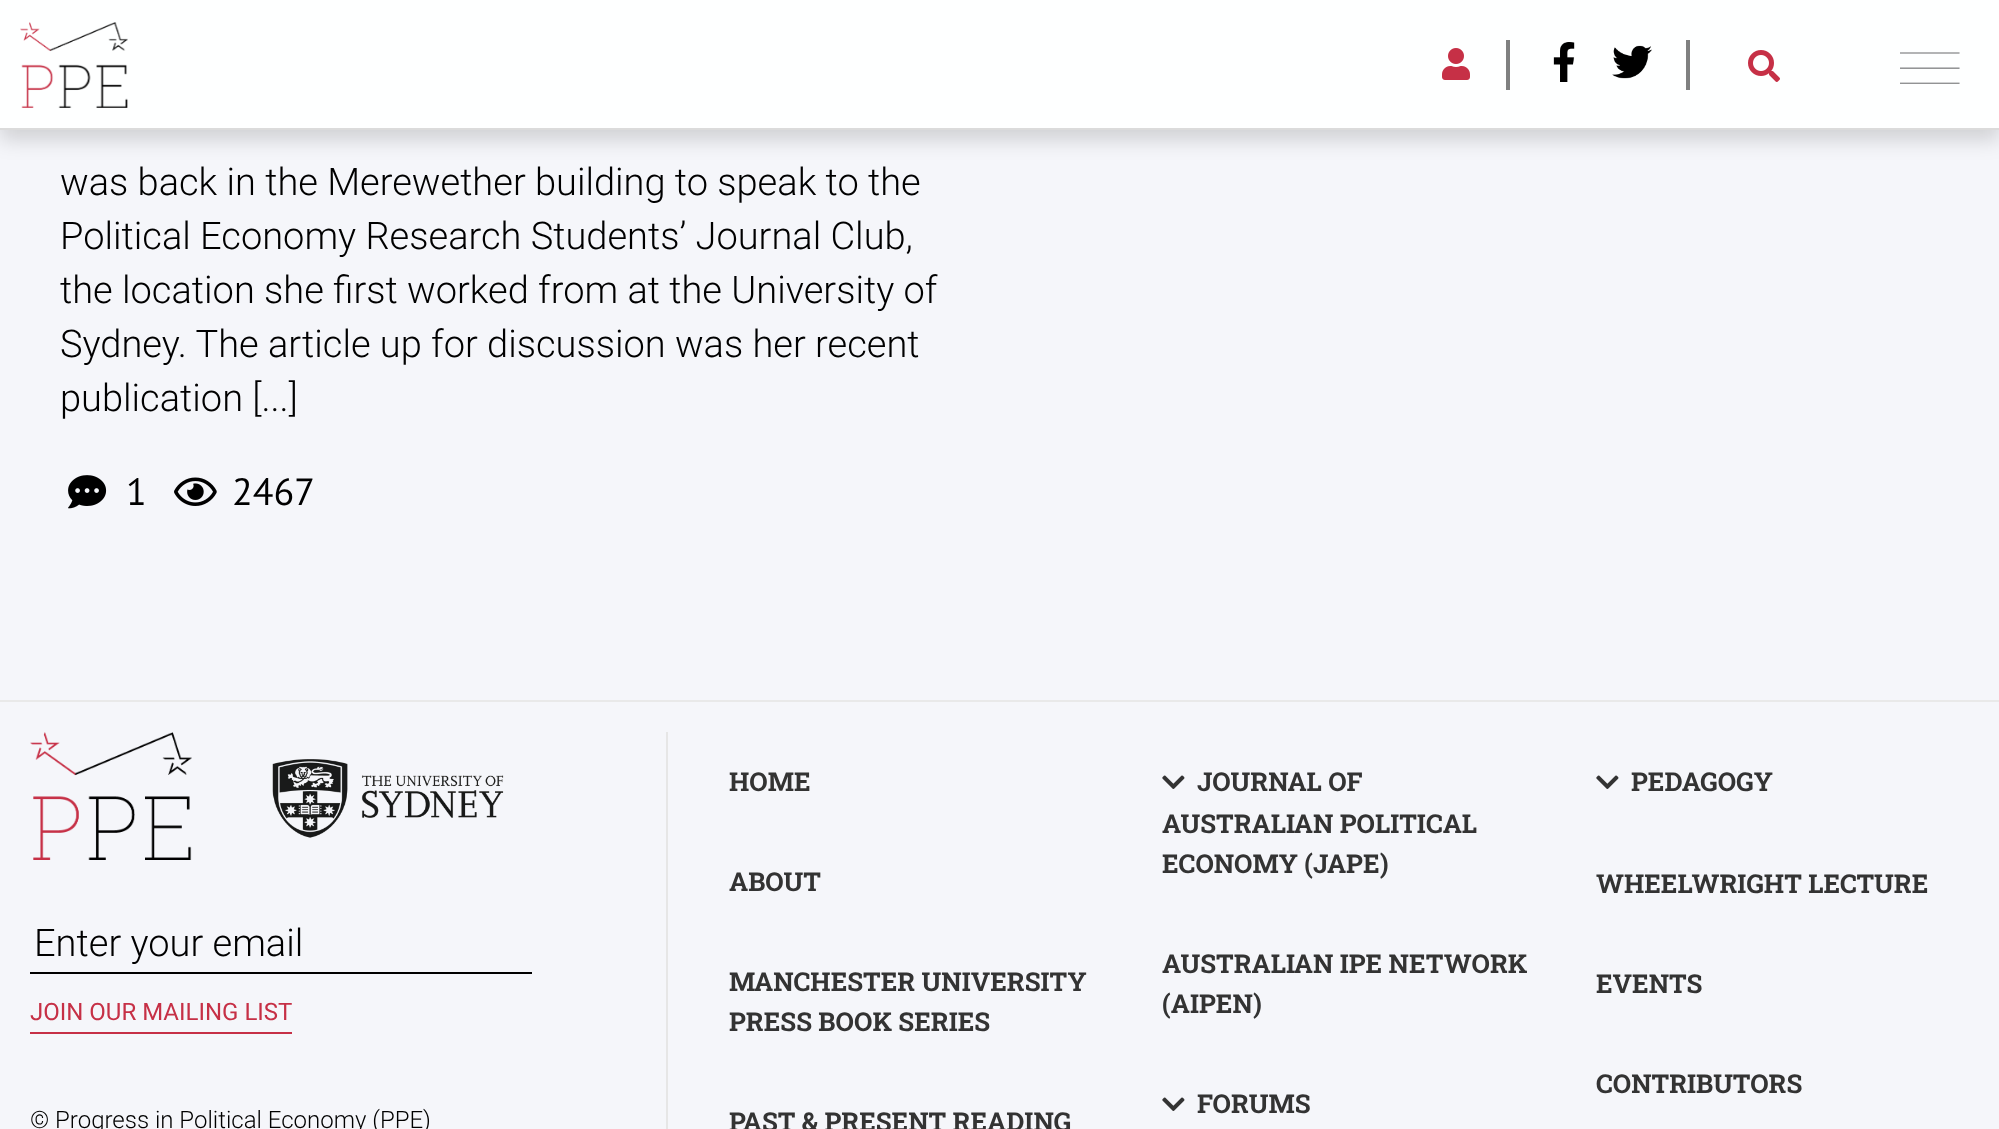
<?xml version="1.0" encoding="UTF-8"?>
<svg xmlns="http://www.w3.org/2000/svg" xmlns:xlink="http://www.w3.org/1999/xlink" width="1999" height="1129">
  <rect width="100%" height="100%" fill="#f5f6fa" />
  <rect y="10" width="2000" height="130" fill="#000000" fill-opacity="0.15" filter="blur(10px)" />
  <rect width="1999" height="128" fill="#feffff" />
  <rect y="128" width="1999" height="2" fill="#dbdbdb" />
  <image x="20" y="22" width="108" height="86" xlink:href="image1.png" />
  <image x="1442" y="48" width="28" height="32" xlink:href="image2.png" />
  <rect x="1506" y="40" width="4" height="50" fill="#7f8080" />
  <image x="1553" y="42" width="22" height="40" xlink:href="image3.png" />
  <image x="1612" y="45" width="40" height="34" xlink:href="image4.png" />
  <rect x="1686" y="40" width="4" height="50" fill="#7f8080" />
  <image x="1748" y="50" width="32" height="32" xlink:href="image5.png" />
  <image x="1900" y="52" width="60" height="32" xlink:href="image6.png" />
  <image x="68" y="475" width="39" height="34" xlink:href="image7.png" />
  <image x="174" y="477" width="43" height="29" xlink:href="image8.png" />
  <rect y="700" width="1999" height="2" fill="#e9e9e9" />
  <image x="30" y="732" width="162" height="128" xlink:href="image9.png" />
  <image x="272" y="759" width="232" height="79" xlink:href="image10.png" />
  <rect x="30" y="972" width="502" height="2" fill="#000000" />
  <rect x="30" y="1032" width="262" height="2" fill="#c63046" />
  <rect x="666" y="732" width="2" height="397" fill="#e6e6e6" />
  <image x="1162" y="775" width="23" height="14" xlink:href="image11.png" />
  <image x="1162" y="1097" width="23" height="14" xlink:href="image11.png" />
  <image x="1596" y="775" width="23" height="14" xlink:href="image11.png" />
  <text x="60" y="195" style="font-family: Roboto; font-size: 38px; font-weight: 300; fill: #000000">was back in the Merewether building to speak to the</text>
  <text x="60" y="249" style="font-family: Roboto; font-size: 38px; font-weight: 300; fill: #000000">Political Economy Research Students’ Journal Club,</text>
  <text x="60" y="303" style="font-family: Roboto; font-size: 38px; font-weight: 300; fill: #000000">the location she first worked from at the University of</text>
  <text x="60" y="357" style="font-family: Roboto; font-size: 38px; font-weight: 300; fill: #000000">Sydney. The article up for discussion was her recent</text>
  <text x="60" y="411" style="font-family: Roboto; font-size: 38px; font-weight: 300; fill: #000000">publication [...]</text>
  <text x="126" y="505" style="font-family: PT Sans; font-size: 38px; fill: #000000">1</text>
  <text x="232" y="505" style="font-family: PT Sans; font-size: 38px; fill: #000000">2467</text>
  <text x="34" y="956" style="font-family: Roboto; font-size: 38px; font-weight: 300; fill: #000000">Enter your email</text>
  <text x="30" y="1020" style="font-family: Roboto; font-size: 24px; fill: #c63046">JOIN OUR MAILING LIST</text>
  <text x="30" y="1128" style="font-family: Roboto; font-size: 24px; font-weight: 300; fill: #000000">© Progress in Political Economy (PPE)</text>
  <text x="729" y="791" style="font-family: Roboto Slab; font-size: 26px; font-weight: bold; fill: #333333">HOME</text>
  <text x="729" y="891" style="font-family: Roboto Slab; font-size: 26px; font-weight: bold; fill: #333333">ABOUT</text>
  <text x="729" y="991" style="font-family: Roboto Slab; font-size: 26px; font-weight: bold; fill: #333333">MANCHESTER UNIVERSITY</text>
  <text x="729" y="1031" style="font-family: Roboto Slab; font-size: 26px; font-weight: bold; fill: #333333">PRESS BOOK SERIES</text>
  <text x="729" y="1131" style="font-family: Roboto Slab; font-size: 26px; font-weight: bold; fill: #333333">PAST &amp; PRESENT READING</text>
  <text x="1197" y="791" style="font-family: Roboto Slab; font-size: 26px; font-weight: bold; fill: #333333">JOURNAL OF</text>
  <text x="1162" y="833" style="font-family: Roboto Slab; font-size: 26px; font-weight: bold; fill: #333333">AUSTRALIAN POLITICAL</text>
  <text x="1162" y="873" style="font-family: Roboto Slab; font-size: 26px; font-weight: bold; fill: #333333">ECONOMY (JAPE)</text>
  <text x="1162" y="973" style="font-family: Roboto Slab; font-size: 26px; font-weight: bold; fill: #333333">AUSTRALIAN IPE NETWORK</text>
  <text x="1162" y="1013" style="font-family: Roboto Slab; font-size: 26px; font-weight: bold; fill: #333333">(AIPEN)</text>
  <text x="1197" y="1113" style="font-family: Roboto Slab; font-size: 26px; font-weight: bold; fill: #333333">FORUMS</text>
  <text x="1631" y="791" style="font-family: Roboto Slab; font-size: 26px; font-weight: bold; fill: #333333">PEDAGOGY</text>
  <text x="1596" y="893" style="font-family: Roboto Slab; font-size: 26px; font-weight: bold; fill: #333333">WHEELWRIGHT LECTURE</text>
  <text x="1596" y="993" style="font-family: Roboto Slab; font-size: 26px; font-weight: bold; fill: #333333">EVENTS</text>
  <text x="1596" y="1093" style="font-family: Roboto Slab; font-size: 26px; font-weight: bold; fill: #333333">CONTRIBUTORS</text>
</svg>
